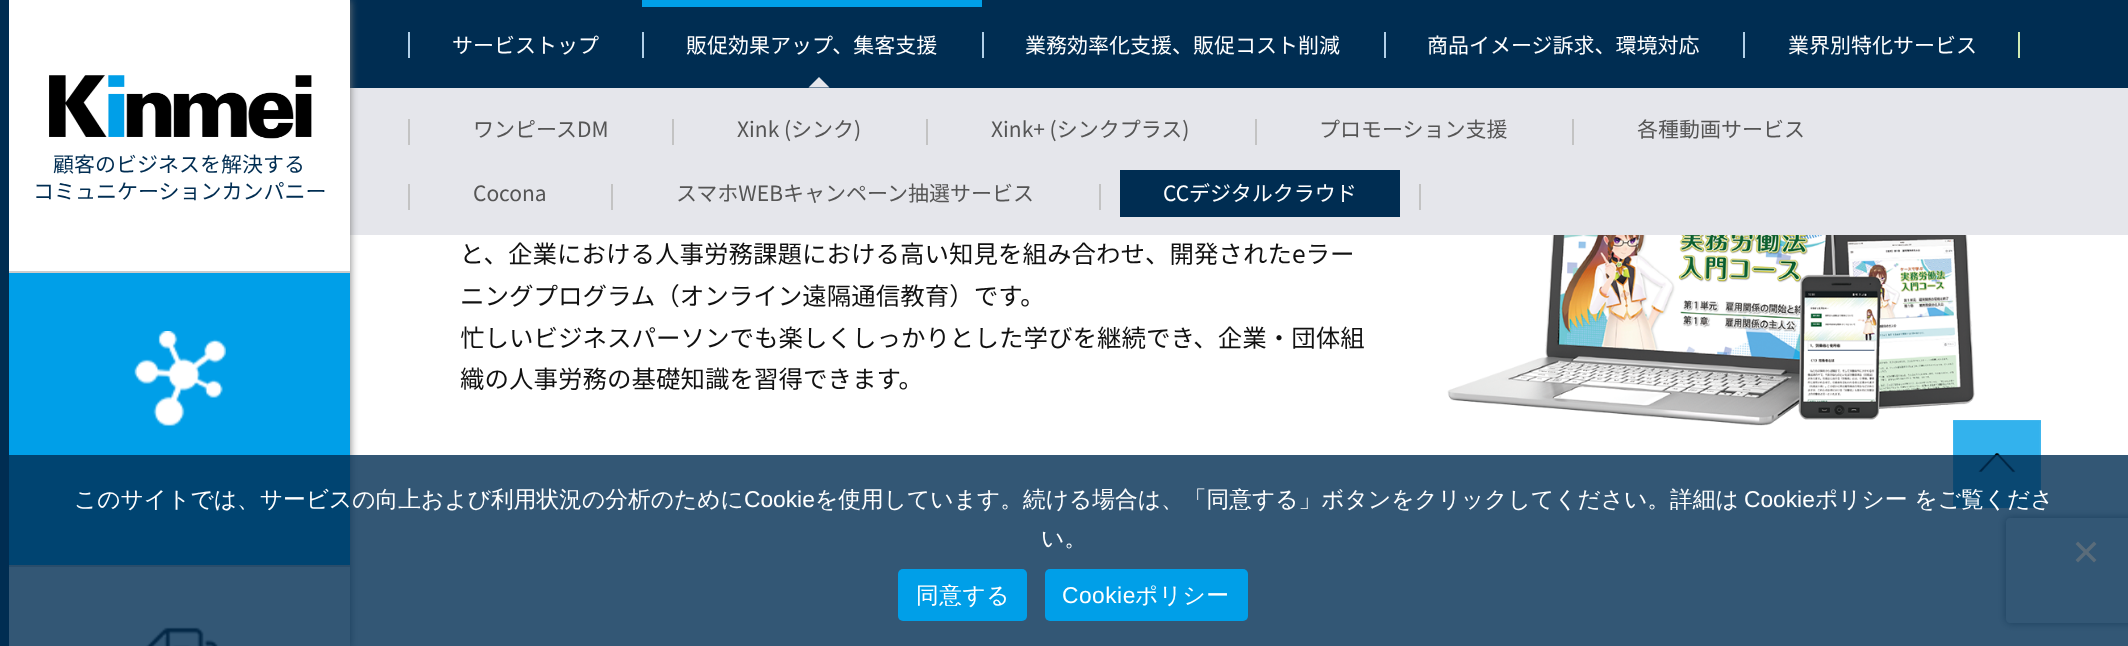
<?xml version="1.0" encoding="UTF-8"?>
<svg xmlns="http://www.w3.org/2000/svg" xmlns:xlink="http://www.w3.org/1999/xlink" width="2128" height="646">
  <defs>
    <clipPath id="clip1"><path d="M 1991 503 h 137 v 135 h -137 z m 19 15 h 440 c 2 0 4 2 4 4 v 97 c 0 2 -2 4 -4 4 h -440 c -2 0 -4 -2 -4 -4 v -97 c 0 -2 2 -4 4 -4 z" clip-rule="evenodd" /></clipPath>
  </defs>
  <rect width="100%" height="100%" fill="#ffffff" />
  <rect x="350" width="1778" height="88" fill="#002d52" />
  <rect x="408" y="32" width="2" height="26" fill="#b1cfe8" />
  <rect x="642" y="32" width="2" height="26" fill="#b1cfe8" />
  <rect x="642" width="340" height="7" fill="#009fe8" />
  <rect x="982" y="32" width="2" height="26" fill="#b1cfe8" />
  <rect x="1384" y="32" width="2" height="26" fill="#b1cfe8" />
  <rect x="1743" y="32" width="2" height="26" fill="#b1cfe8" />
  <rect x="2018" y="32" width="2" height="26" fill="#d0eab4" />
  <rect x="350" y="88" width="1778" height="147" fill="#e5e6eb" />
  <path d="M 829.5 87.5 h -21 l 10.5 -10.5 z" fill="#e5e6eb" />
  <rect x="408" y="119" width="2" height="26" fill="#c3c3c3" />
  <rect x="672" y="119" width="2" height="26" fill="#c3c3c3" />
  <rect x="926" y="119" width="2" height="26" fill="#c3c3c3" />
  <rect x="1255" y="119" width="2" height="26" fill="#c3c3c3" />
  <rect x="1572" y="119" width="2" height="26" fill="#c3c3c3" />
  <rect x="408" y="184" width="2" height="26" fill="#c3c3c3" />
  <rect x="611" y="184" width="2" height="26" fill="#c3c3c3" />
  <rect x="1099" y="184" width="2" height="26" fill="#c3c3c3" />
  <rect x="1120" y="170" width="280" height="47" fill="#002d52" />
  <rect x="1419" y="184" width="2" height="26" fill="#c3c3c3" />
  <image x="1447" y="235" width="528" height="191" xlink:href="image1.png" />
  <g clip-path="url(#clip1)">
    <rect x="2006" y="518" width="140" height="105" rx="4" fill="#808080" filter="blur(4.5px)" />
  </g>
  <image x="1953" y="420" width="88" height="88" xlink:href="image2.png" />
  <rect width="350" height="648" fill="#7a7a7a" filter="blur(4.5px)" />
  <rect x="9" width="341" height="646" fill="#ffffff" />
  <rect x="9" y="565" width="341" height="2" fill="#cccccc" />
  <rect x="9" y="273" width="341" height="292" fill="#009fe8" />
  <image x="145" y="627" width="73" height="19" xlink:href="image5.png" />
  <rect x="9" y="455" width="2119" height="191" fill="#002d52" fill-opacity="0.8" />
  <path d="M 2094 541.5 l 2.5 2.5 l -18.5 18.5 l -2.5 -2.5 z" fill="#5a6c7a" />
  <path d="M 2075.5 544 l 2.5 -2.5 l 18.5 18.5 l -2.5 2.5 z" fill="#5a6c7a" />
  <rect x="898" y="569" width="129" height="52" rx="5" fill="#009fe8" />
  <rect x="1045" y="569" width="203" height="52" rx="5" fill="#009fe8" />
  <rect width="9" height="646" fill="#002d52" />
  <rect x="9" y="271" width="341" height="2" fill="#cccccc" />
  <image x="49" y="75" width="263" height="64" xlink:href="image3.png" />
  <image x="134" y="331" width="92" height="95" xlink:href="image4.png" />
  <text x="452" y="53" style="font-family: Noto Sans JP; font-size: 21px; fill: #ffffff">サービストップ</text>
  <text x="686" y="53" style="font-family: Noto Sans JP; font-size: 21px; fill: #ffffff">販促効果アップ、集客支援</text>
  <text x="1025" y="53" style="font-family: Noto Sans JP; font-size: 21px; fill: #ffffff">業務効率化支援、販促コスト削減</text>
  <text x="1427" y="53" style="font-family: Noto Sans JP; font-size: 21px; fill: #ffffff">商品イメージ訴求、環境対応</text>
  <text x="1788" y="53" style="font-family: Noto Sans JP; font-size: 21px; fill: #ffffff">業界別特化サービス</text>
  <text x="473" y="137" style="font-family: Noto Sans JP; font-size: 21px; fill: #555555">ワンピースDM</text>
  <text x="737" y="137" style="font-family: Noto Sans JP; font-size: 21px; fill: #555555">Xink (シンク)</text>
  <text x="991" y="137" style="font-family: Noto Sans JP; font-size: 21px; fill: #555555">Xink+ (シンクプラス)</text>
  <text x="1319" y="137" style="font-family: Noto Sans JP; font-size: 21px; fill: #555555">プロモーション支援</text>
  <text x="1637" y="137" style="font-family: Noto Sans JP; font-size: 21px; fill: #555555">各種動画サービス</text>
  <text x="473" y="201" style="font-family: Noto Sans JP; font-size: 21px; fill: #555555">Cocona</text>
  <text x="676" y="201" style="font-family: Noto Sans JP; font-size: 21px; fill: #555555">スマホWEBキャンペーン抽選サービス</text>
  <text x="1163" y="201" style="font-family: Noto Sans JP; font-size: 21px; fill: #ffffff">CCデジタルクラウド</text>
  <text x="460" y="263" style="font-family: Noto Sans JP; font-size: 24.5px; fill: #111111">と、企業における人事労務課題における高い知見を組み合わせ、開発されたeラー</text>
  <text x="460" y="305" style="font-family: Noto Sans JP; font-size: 24.5px; fill: #111111">ニングプログラム（オンライン遠隔通信教育）です。</text>
  <text x="460" y="347" style="font-family: Noto Sans JP; font-size: 24.5px; fill: #111111">忙しいビジネスパーソンでも楽しくしっかりとした学びを継続でき、企業・団体組</text>
  <text x="460" y="388" style="font-family: Noto Sans JP; font-size: 24.5px; fill: #111111">織の人事労務の基礎知識を習得できます。</text>
  <text x="74" y="507" style="font-family: WenQuanYi Zen Hei; font-size: 22.75px; font-weight: 500; fill: #ffffff">このサイトでは、サービスの向上および利用状況の分析のために</text>
  <text x="744" y="507" style="font-family: Liberation Sans; font-size: 22.75px; fill: #ffffff">Cookie</text>
  <text x="815" y="507" style="font-family: WenQuanYi Zen Hei; font-size: 22.75px; font-weight: 500; fill: #ffffff">を使用しています。続ける場合は、「同意する」ボタンをクリックしてください。詳細は</text>
  <text x="1744" y="507" style="font-family: Liberation Sans; font-size: 22.75px; fill: #ffffff">Cookie</text>
  <text x="1815" y="507" style="font-family: WenQuanYi Zen Hei; font-size: 22.75px; font-weight: 500; fill: #ffffff">ポリシー をご覧くださ</text>
  <text x="1041" y="546" style="font-family: WenQuanYi Zen Hei; font-size: 22.75px; font-weight: 500; fill: #ffffff">い。</text>
  <text x="916" y="603" style="font-family: WenQuanYi Zen Hei; font-size: 22.75px; font-weight: 500; letter-spacing: 0.5px; fill: #ffffff">同意する</text>
  <text x="1062" y="603" style="font-family: Liberation Sans; font-size: 22.75px; letter-spacing: 0.5px; fill: #ffffff">Cookie</text>
  <text x="1135" y="603" style="font-family: WenQuanYi Zen Hei; font-size: 22.75px; font-weight: 500; letter-spacing: 0.5px; fill: #ffffff">ポリシー</text>
  <text x="53" y="172" style="font-family: Noto Sans JP; font-size: 21px; fill: #002d52">顧客のビジネスを解決する</text>
  <text x="33" y="199" style="font-family: Noto Sans JP; font-size: 21px; fill: #002d52">コミュニケーションカンパニー</text>
</svg>
